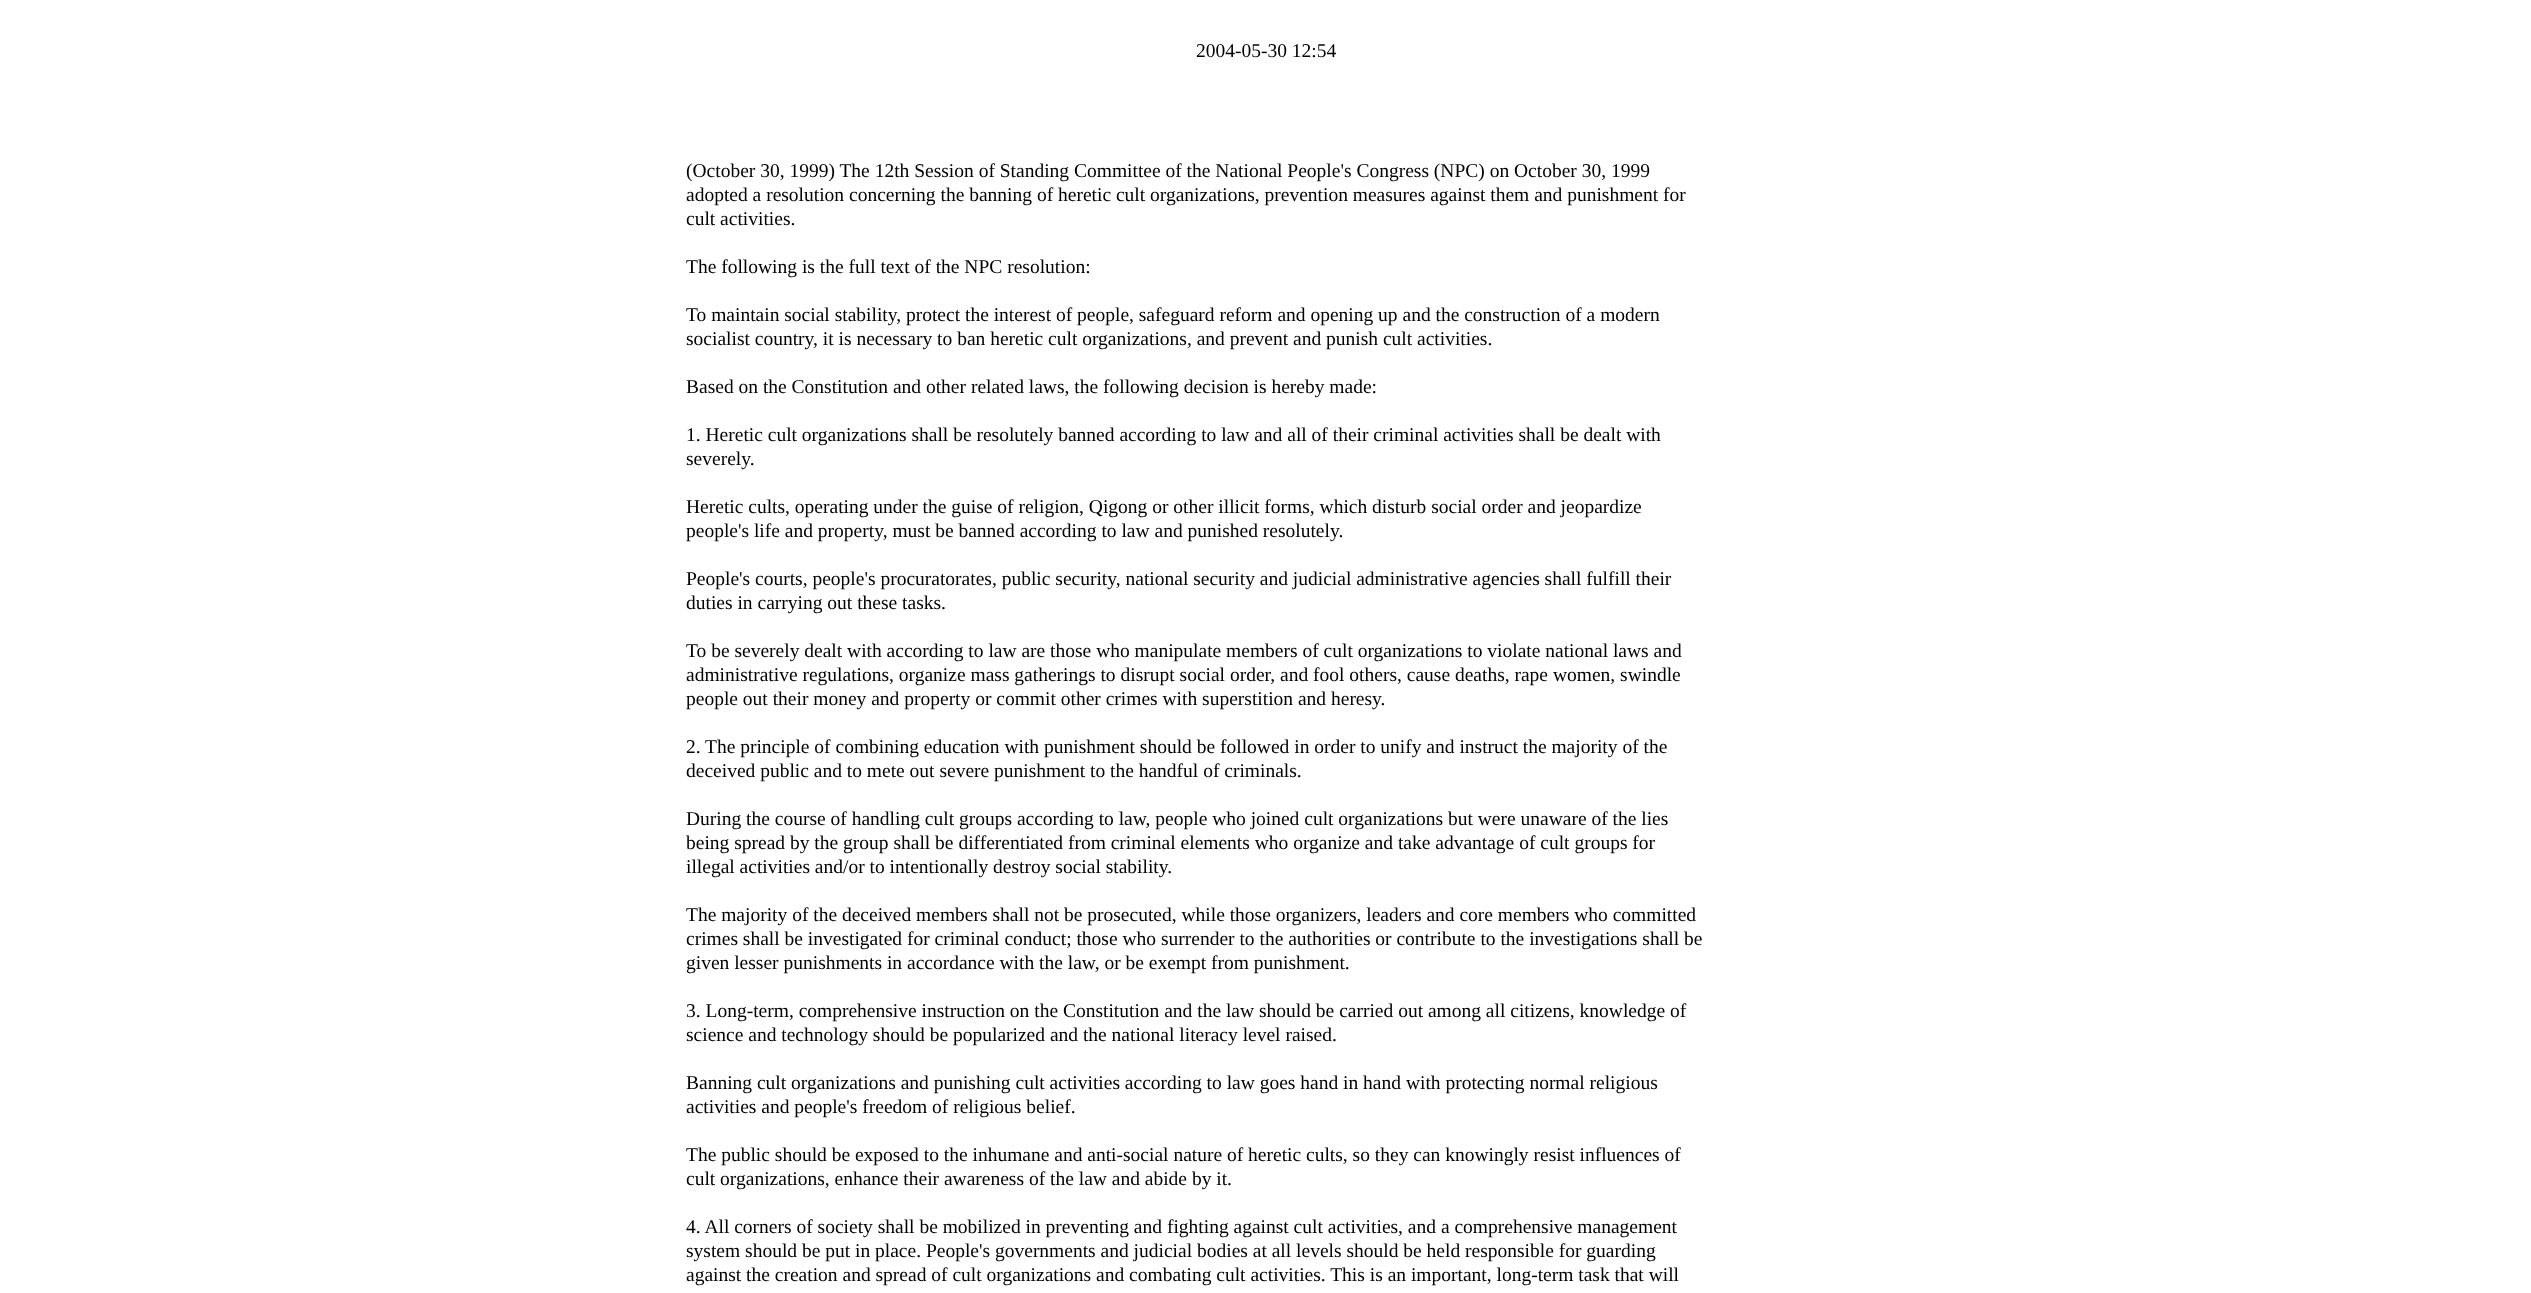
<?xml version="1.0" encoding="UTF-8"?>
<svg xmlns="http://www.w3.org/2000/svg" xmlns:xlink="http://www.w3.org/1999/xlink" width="2531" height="1293">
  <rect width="100%" height="100%" fill="#ffffff" />
  <text x="1196" y="57" style="font-family: Liberation Serif; font-size: 19.5px; fill: #000000">2004-05-30 12:54</text>
  <text x="686" y="177" style="font-family: Liberation Serif; font-size: 19.5px; fill: #000000">(October 30, 1999) The 12th Session of Standing Committee of the National People's Congress (NPC) on October 30, 1999</text>
  <text x="686" y="201" style="font-family: Liberation Serif; font-size: 19.5px; fill: #000000">adopted a resolution concerning the banning of heretic cult organizations, prevention measures against them and punishment for</text>
  <text x="686" y="225" style="font-family: Liberation Serif; font-size: 19.5px; fill: #000000">cult activities.</text>
  <text x="686" y="273" style="font-family: Liberation Serif; font-size: 19.5px; fill: #000000">The following is the full text of the NPC resolution:</text>
  <text x="686" y="321" style="font-family: Liberation Serif; font-size: 19.5px; fill: #000000">To maintain social stability, protect the interest of people, safeguard reform and opening up and the construction of a modern</text>
  <text x="686" y="345" style="font-family: Liberation Serif; font-size: 19.5px; fill: #000000">socialist country, it is necessary to ban heretic cult organizations, and prevent and punish cult activities.</text>
  <text x="686" y="393" style="font-family: Liberation Serif; font-size: 19.5px; fill: #000000">Based on the Constitution and other related laws, the following decision is hereby made:</text>
  <text x="686" y="441" style="font-family: Liberation Serif; font-size: 19.5px; fill: #000000">1. Heretic cult organizations shall be resolutely banned according to law and all of their criminal activities shall be dealt with</text>
  <text x="686" y="465" style="font-family: Liberation Serif; font-size: 19.5px; fill: #000000">severely.</text>
  <text x="686" y="513" style="font-family: Liberation Serif; font-size: 19.5px; fill: #000000">Heretic cults, operating under the guise of religion, Qigong or other illicit forms, which disturb social order and jeopardize</text>
  <text x="686" y="537" style="font-family: Liberation Serif; font-size: 19.5px; fill: #000000">people's life and property, must be banned according to law and punished resolutely.</text>
  <text x="686" y="585" style="font-family: Liberation Serif; font-size: 19.5px; fill: #000000">People's courts, people's procuratorates, public security, national security and judicial administrative agencies shall fulfill their</text>
  <text x="686" y="609" style="font-family: Liberation Serif; font-size: 19.5px; fill: #000000">duties in carrying out these tasks.</text>
  <text x="686" y="657" style="font-family: Liberation Serif; font-size: 19.5px; fill: #000000">To be severely dealt with according to law are those who manipulate members of cult organizations to violate national laws and</text>
  <text x="686" y="681" style="font-family: Liberation Serif; font-size: 19.5px; fill: #000000">administrative regulations, organize mass gatherings to disrupt social order, and fool others, cause deaths, rape women, swindle</text>
  <text x="686" y="705" style="font-family: Liberation Serif; font-size: 19.5px; fill: #000000">people out their money and property or commit other crimes with superstition and heresy.</text>
  <text x="686" y="753" style="font-family: Liberation Serif; font-size: 19.5px; fill: #000000">2.</text>
  <text x="705" y="753" style="font-family: Liberation Serif; font-size: 19.5px; fill: #000000">The principle of combining education with punishment should be followed in order to unify and instruct the majority of the</text>
  <text x="686" y="777" style="font-family: Liberation Serif; font-size: 19.5px; fill: #000000">deceived public and to mete out severe punishment to the handful of criminals.</text>
  <text x="686" y="825" style="font-family: Liberation Serif; font-size: 19.5px; fill: #000000">During the course of handling cult groups according to law, people who joined cult organizations but were unaware of the lies</text>
  <text x="686" y="849" style="font-family: Liberation Serif; font-size: 19.5px; fill: #000000">being spread by the group shall be differentiated from criminal elements who organize and take advantage of cult groups for</text>
  <text x="686" y="873" style="font-family: Liberation Serif; font-size: 19.5px; fill: #000000">illegal activities and/or to intentionally destroy social stability.</text>
  <text x="686" y="921" style="font-family: Liberation Serif; font-size: 19.5px; fill: #000000">The majority of the deceived members shall not be prosecuted, while those organizers, leaders and core members who committed</text>
  <text x="686" y="945" style="font-family: Liberation Serif; font-size: 19.5px; fill: #000000">crimes shall be investigated for criminal conduct; those who surrender to the authorities or contribute to the investigations shall be</text>
  <text x="686" y="969" style="font-family: Liberation Serif; font-size: 19.5px; fill: #000000">given lesser punishments in accordance with the law, or be exempt from punishment.</text>
  <text x="686" y="1017" style="font-family: Liberation Serif; font-size: 19.5px; fill: #000000">3. Long-term, comprehensive instruction on the Constitution and the law should be carried out among all citizens, knowledge of</text>
  <text x="686" y="1041" style="font-family: Liberation Serif; font-size: 19.5px; fill: #000000">science and technology should be popularized and the national literacy level raised.</text>
  <text x="686" y="1089" style="font-family: Liberation Serif; font-size: 19.5px; fill: #000000">Banning cult organizations and punishing cult activities according to law goes hand in hand with protecting normal religious</text>
  <text x="686" y="1113" style="font-family: Liberation Serif; font-size: 19.5px; fill: #000000">activities and people's freedom of religious belief.</text>
  <text x="686" y="1161" style="font-family: Liberation Serif; font-size: 19.5px; fill: #000000">The public should be exposed to the inhumane and anti-social nature of heretic cults, so they can knowingly resist influences of</text>
  <text x="686" y="1185" style="font-family: Liberation Serif; font-size: 19.5px; fill: #000000">cult organizations, enhance their awareness of the law and abide by it.</text>
  <text x="686" y="1233" style="font-family: Liberation Serif; font-size: 19.5px; fill: #000000">4. All corners of society shall be mobilized in preventing and fighting against cult activities, and a comprehensive management</text>
  <text x="686" y="1257" style="font-family: Liberation Serif; font-size: 19.5px; fill: #000000">system should be put in place. People's governments and judicial bodies at all levels should be held responsible for guarding</text>
  <text x="686" y="1281" style="font-family: Liberation Serif; font-size: 19.5px; fill: #000000">against the creation and spread of cult organizations and combating cult activities. This is an important, long-term task that will</text>
</svg>
